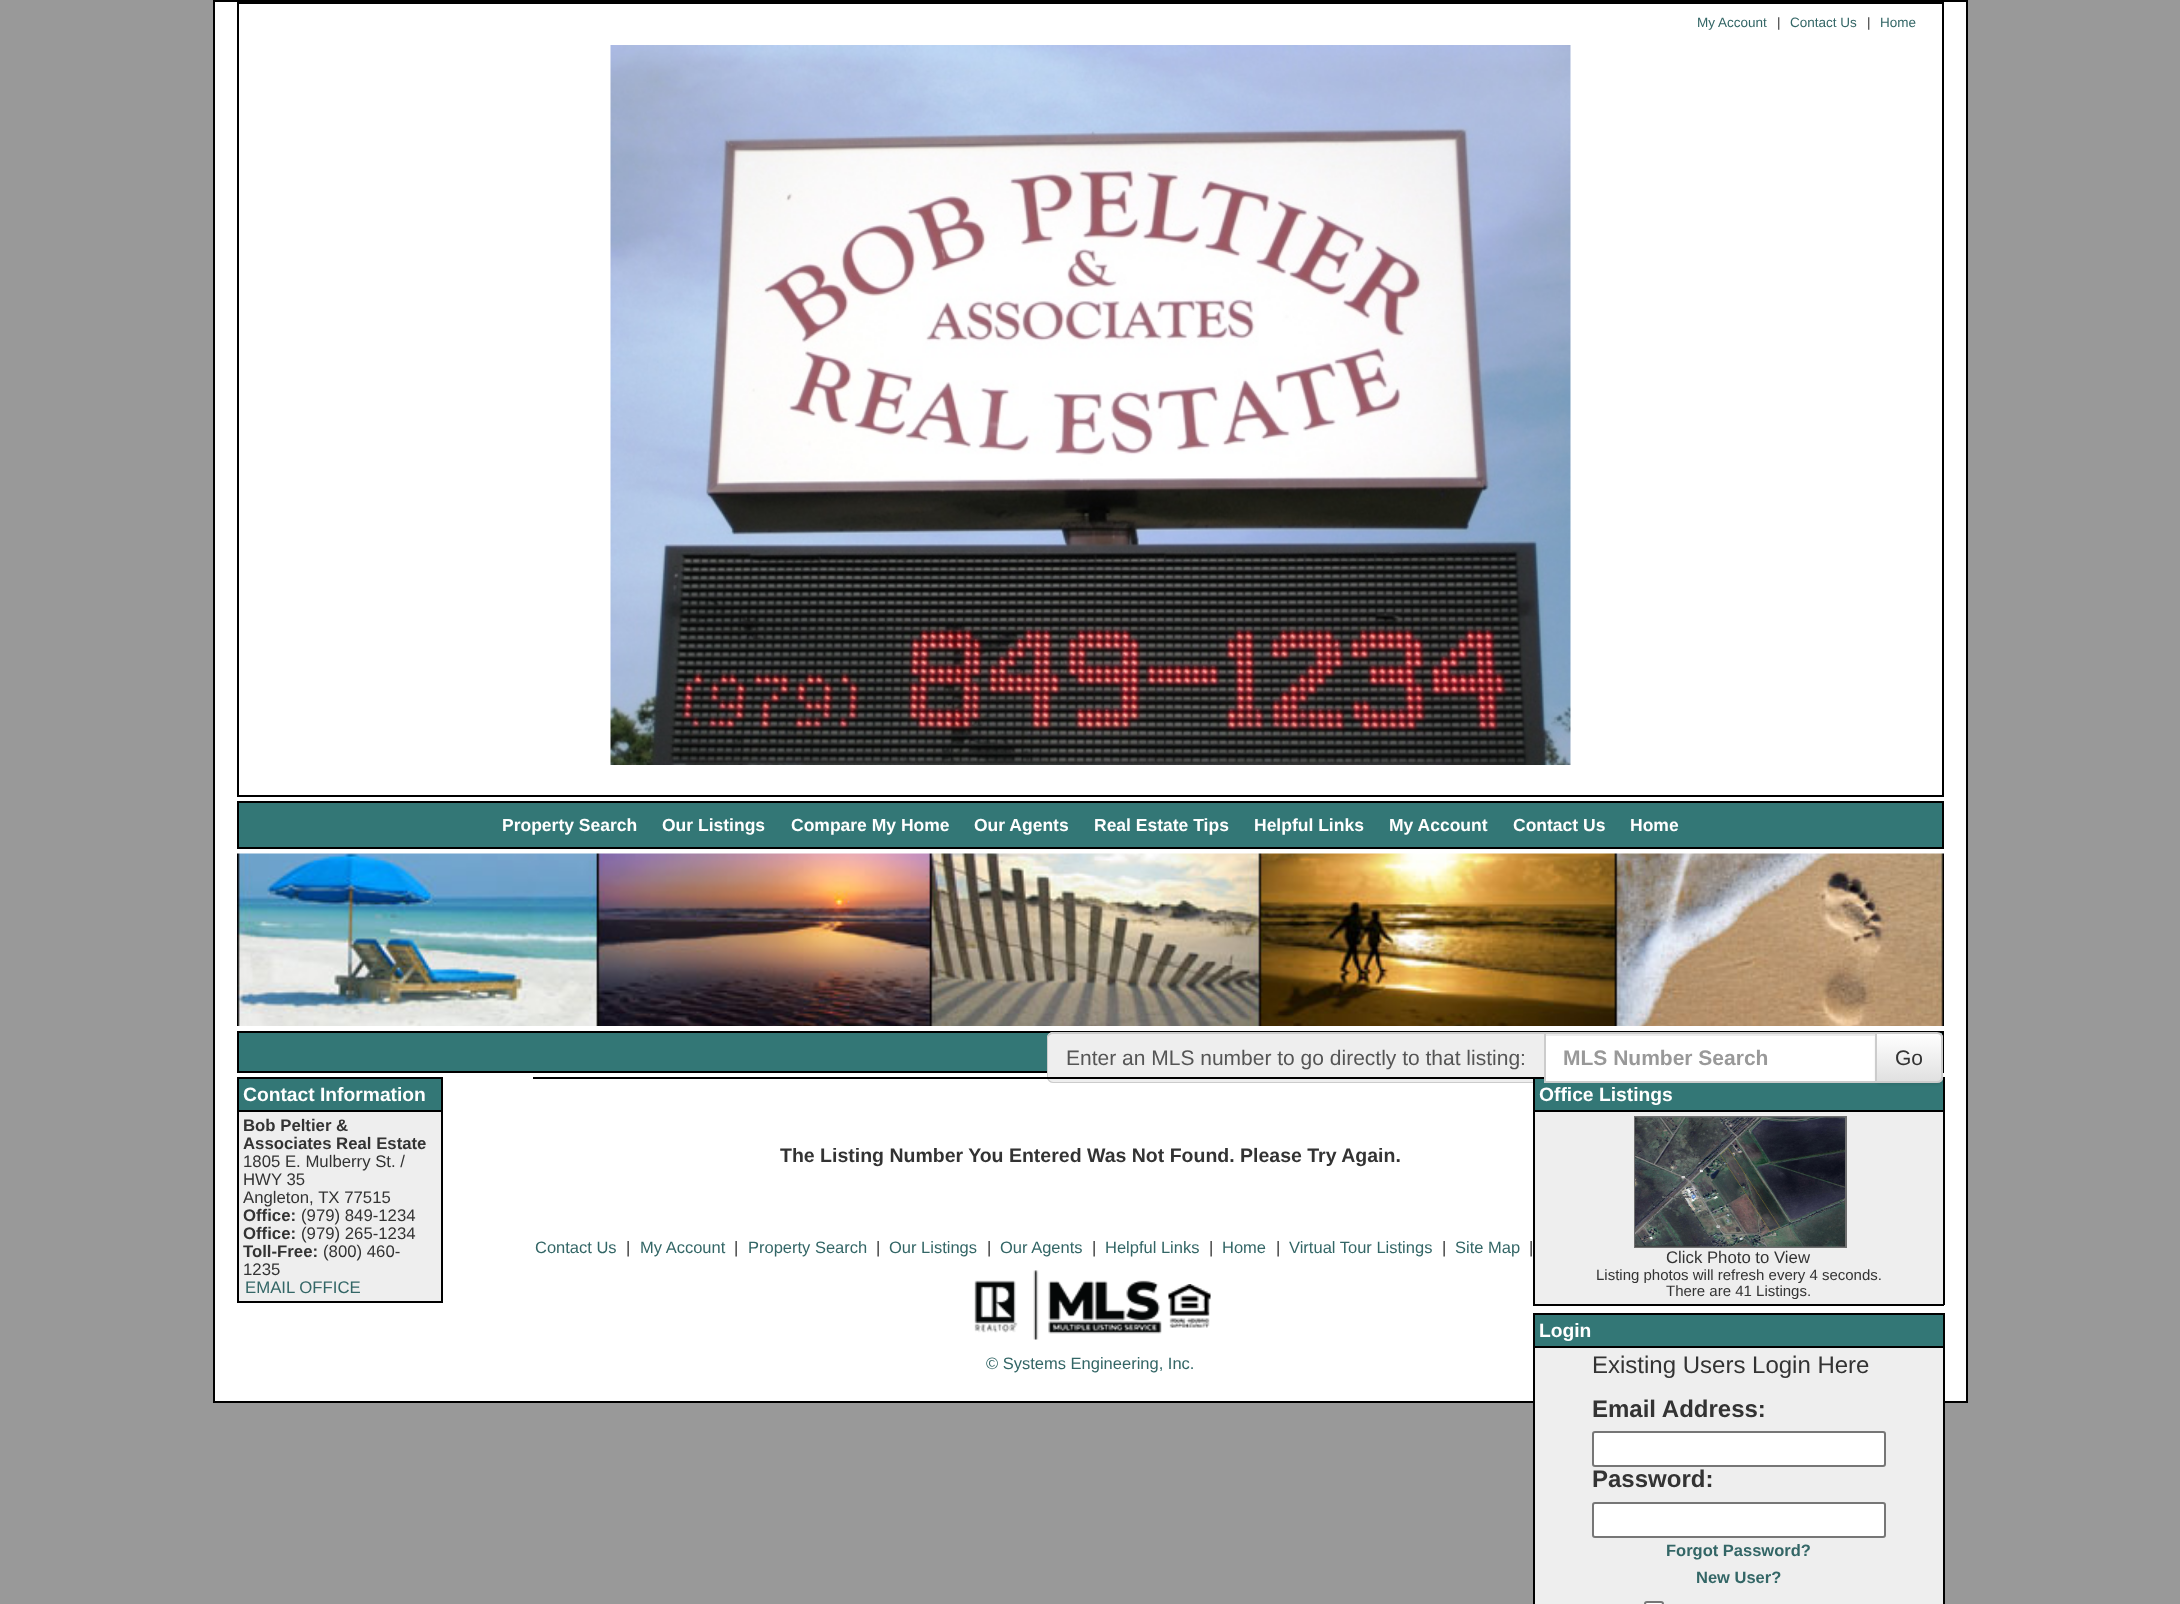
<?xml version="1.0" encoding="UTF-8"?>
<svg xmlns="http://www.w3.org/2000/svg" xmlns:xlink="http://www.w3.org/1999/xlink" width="2180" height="1604">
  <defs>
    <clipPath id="clip1"><path d="M 1875 1032 h 62 c 3.5 0 6 2.5 6 6 v 39 c 0 3.5 -2.5 6 -6 6 h -62 z" /></clipPath>
    <linearGradient id="g1" gradientUnits="userSpaceOnUse" x1="1909" y1="1034" x2="1909" y2="1082"><stop offset="0" stop-color="#ffffff" /><stop offset="1" stop-color="#e0e0e0" /></linearGradient>
  </defs>
  <rect width="100%" height="100%" fill="#999999" />
  <rect x="214" y="1" width="1753" height="1401" fill="#ffffff" stroke="#000000" stroke-width="2" />
  <rect x="238" y="3" width="1705" height="793" fill="none" stroke="#000000" stroke-width="2" />
  <image x="610" y="45" width="961" height="720" xlink:href="image1.png" />
  <rect x="238" y="802" width="1705" height="46" fill="#337776" stroke="#000000" stroke-width="2" />
  <image x="237" y="853" width="1707" height="173" xlink:href="image2.png" />
  <rect x="238" y="1032" width="1705" height="40" fill="#337776" stroke="#000000" stroke-width="2" />
  <path d="M 1053 1032 h 491 v 51 h -491 c -3.5 0 -6 -2.5 -6 -6 v -39 c 0 -3.5 2.5 -6 6 -6 z" fill="#eeeeee" />
  <path d="M 1053 1032 h 491 v 51 h -491 c -3 0 -6 -3 -6 -6 v -39 c 0 -3 3 -6 6 -6 z m 0 2 h 491 v 48 h -491 c -2 0 -5 -3 -5 -5 v -39 c 0 -2 3 -4 5 -4 z" fill="#cccccc" fill-rule="evenodd" />
  <rect x="533" y="1077" width="1411" height="2" fill="#000000" />
  <rect x="1535" y="1079" width="408" height="31" fill="#337776" />
  <rect x="1546" y="1036" width="329" height="45" fill="#ffffff" />
  <rect x="1545" y="1034" width="330" height="2" fill="#ececec" />
  <rect x="1545" y="1033" width="331" height="49" fill="none" stroke="#cccccc" stroke-width="2" />
  <rect x="1943" y="1077" width="2" height="228" fill="#000000" />
  <rect x="1875" y="1034" width="68" height="51" rx="6" fill="#000000" fill-opacity="0.07" filter="blur(1px)" />
  <g clip-path="url(#clip1)">
    <rect x="1877" y="1034" width="66" height="48" fill="url(#g1)" />
  </g>
  <path d="M 1876 1033 h 61 c 3 0 5 2 5 5 v 39 c 0 3 -2 5 -5 5 h -61 z" fill="none" stroke="#cccccc" stroke-width="2" />
  <rect x="239" y="1079" width="202" height="31" fill="#337776" />
  <rect x="237" y="1077" width="206" height="2" fill="#000000" />
  <rect x="441" y="1110" width="2" height="192" fill="#000000" />
  <rect x="441" y="1077" width="2" height="35" fill="#000000" />
  <rect x="237" y="1301" width="206" height="2" fill="#000000" />
  <rect x="237" y="1110" width="2" height="192" fill="#000000" />
  <rect x="237" y="1110" width="206" height="2" fill="#000000" />
  <rect x="237" y="1077" width="2" height="35" fill="#000000" />
  <rect x="239" y="1112" width="202" height="189" fill="#eeeeee" />
  <rect x="1533" y="1304" width="411" height="2" fill="#000000" />
  <rect x="1533" y="1110" width="2" height="195" fill="#000000" />
  <rect x="1533" y="1110" width="411" height="2" fill="#000000" />
  <rect x="1533" y="1077" width="2" height="35" fill="#000000" />
  <rect x="1535" y="1112" width="408" height="192" fill="#eeeeee" />
  <rect x="1635" y="1117" width="211" height="130" fill="none" stroke="#6f6f6f" stroke-width="2" />
  <image x="1635" y="1117" width="210" height="130" xlink:href="image3.png" />
  <rect x="1535" y="1315" width="408" height="31" fill="#337776" />
  <rect x="1533" y="1313" width="411" height="2" fill="#000000" />
  <rect x="1943" y="1346" width="2" height="258" fill="#000000" />
  <rect x="1943" y="1313" width="2" height="34" fill="#000000" />
  <rect x="1533" y="1346" width="2" height="258" fill="#000000" />
  <rect x="1533" y="1346" width="411" height="2" fill="#000000" />
  <rect x="1533" y="1313" width="2" height="34" fill="#000000" />
  <rect x="1535" y="1348" width="408" height="256" fill="#eeeeee" />
  <rect x="1593" y="1432" width="292" height="34" rx="2" fill="#ffffff" stroke="#767676" stroke-width="2" />
  <rect x="1593" y="1503" width="292" height="34" rx="2" fill="#ffffff" stroke="#767676" stroke-width="2" />
  <rect x="1645" y="1602" width="18" height="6" rx="2" fill="#ffffff" stroke="#767676" stroke-width="2" />
  <image x="974" y="1270" width="188" height="70" xlink:href="image4.png" />
  <image x="1168" y="1284" width="43" height="44" xlink:href="image5.png" />
  <text x="1697" y="27" style="font-family: Liberation Sans; font-size: 13.5px; fill: #336666">My Account</text>
  <text x="1777" y="27" style="font-family: Liberation Sans; font-size: 13.5px; fill: #333333">|</text>
  <text x="1790" y="27" style="font-family: Liberation Sans; font-size: 13.5px; fill: #336666">Contact Us</text>
  <text x="1867" y="27" style="font-family: Liberation Sans; font-size: 13.5px; fill: #333333">|</text>
  <text x="1880" y="27" style="font-family: Liberation Sans; font-size: 13.5px; fill: #336666">Home</text>
  <text x="502" y="831" style="font-family: Liberation Sans; font-size: 17.5px; font-weight: bold; fill: #ffffff">Property Search</text>
  <text x="662" y="831" style="font-family: Liberation Sans; font-size: 17.5px; font-weight: bold; fill: #ffffff">Our Listings</text>
  <text x="791" y="831" style="font-family: Liberation Sans; font-size: 17.5px; font-weight: bold; fill: #ffffff">Compare My Home</text>
  <text x="974" y="831" style="font-family: Liberation Sans; font-size: 17.5px; font-weight: bold; fill: #ffffff">Our Agents</text>
  <text x="1094" y="831" style="font-family: Liberation Sans; font-size: 17.5px; font-weight: bold; fill: #ffffff">Real Estate Tips</text>
  <text x="1254" y="831" style="font-family: Liberation Sans; font-size: 17.5px; font-weight: bold; fill: #ffffff">Helpful Links</text>
  <text x="1389" y="831" style="font-family: Liberation Sans; font-size: 17.5px; font-weight: bold; fill: #ffffff">My Account</text>
  <text x="1513" y="831" style="font-family: Liberation Sans; font-size: 17.5px; font-weight: bold; fill: #ffffff">Contact Us</text>
  <text x="1630" y="831" style="font-family: Liberation Sans; font-size: 17.5px; font-weight: bold; fill: #ffffff">Home</text>
  <text x="1066" y="1065" style="font-family: Liberation Sans; font-size: 21px; fill: #555555">Enter an MLS number to go directly to that listing:</text>
  <text x="1563" y="1065" style="font-family: Liberation Sans; font-size: 21px; font-weight: bold; fill: #999999">MLS Number Search</text>
  <text x="1895" y="1065" style="font-family: Liberation Sans; font-size: 21px; fill: #333333">Go</text>
  <text x="243" y="1101" style="font-family: Liberation Sans; font-size: 19.25px; font-weight: bold; fill: #ffffff">Contact Information</text>
  <text x="243" y="1131" style="font-family: Liberation Sans; font-size: 16.75px; font-weight: bold; fill: #333333">Bob Peltier &amp;</text>
  <text x="243" y="1149" style="font-family: Liberation Sans; font-size: 16.75px; font-weight: bold; fill: #333333">Associates Real Estate</text>
  <text x="243" y="1167" style="font-family: Liberation Sans; font-size: 16.75px; fill: #333333">1805 E. Mulberry St. /</text>
  <text x="243" y="1185" style="font-family: Liberation Sans; font-size: 16.75px; fill: #333333">HWY 35</text>
  <text x="243" y="1203" style="font-family: Liberation Sans; font-size: 16.75px; fill: #333333">Angleton, TX 77515</text>
  <text x="243" y="1221" style="font-family: Liberation Sans; font-size: 16.75px; font-weight: bold; fill: #333333">Office:</text>
  <text x="301" y="1221" style="font-family: Liberation Sans; font-size: 16.75px; fill: #333333">(979) 849-1234</text>
  <text x="243" y="1239" style="font-family: Liberation Sans; font-size: 16.75px; font-weight: bold; fill: #333333">Office:</text>
  <text x="301" y="1239" style="font-family: Liberation Sans; font-size: 16.75px; fill: #333333">(979) 265-1234</text>
  <text x="243" y="1257" style="font-family: Liberation Sans; font-size: 16.75px; font-weight: bold; fill: #333333">Toll-Free:</text>
  <text x="323" y="1257" style="font-family: Liberation Sans; font-size: 16.75px; fill: #333333">(800) 460-</text>
  <text x="243" y="1275" style="font-family: Liberation Sans; font-size: 16.75px; fill: #333333">1235</text>
  <text x="245" y="1293" style="font-family: Liberation Sans; font-size: 16.75px; fill: #336666">EMAIL OFFICE</text>
  <text x="780" y="1162" style="font-family: Liberation Sans; font-size: 19.5px; font-weight: bold; fill: #333333">The Listing Number You Entered Was Not Found. Please Try Again.</text>
  <text x="1539" y="1101" style="font-family: Liberation Sans; font-size: 19.25px; font-weight: bold; fill: #ffffff">Office Listings</text>
  <text x="1666" y="1263" style="font-family: Liberation Sans; font-size: 16.75px; fill: #333333">Click Photo to View</text>
  <text x="1596" y="1280" style="font-family: Liberation Sans; font-size: 15px; fill: #333333">Listing photos will refresh every 4 seconds.</text>
  <text x="1666" y="1296" style="font-family: Liberation Sans; font-size: 15px; fill: #333333">There are 41 Listings.</text>
  <text x="1539" y="1337" style="font-family: Liberation Sans; font-size: 19.25px; font-weight: bold; fill: #ffffff">Login</text>
  <text x="1592" y="1373" style="font-family: Liberation Sans; font-size: 24px; fill: #333333">Existing Users Login Here</text>
  <text x="1592" y="1417" style="font-family: Liberation Sans; font-size: 24px; font-weight: bold; fill: #333333">Email Address:</text>
  <text x="1592" y="1487" style="font-family: Liberation Sans; font-size: 24px; font-weight: bold; fill: #333333">Password:</text>
  <text x="1666" y="1556" style="font-family: Liberation Sans; font-size: 16.5px; font-weight: bold; fill: #336666">Forgot Password?</text>
  <text x="1696" y="1583" style="font-family: Liberation Sans; font-size: 16.5px; font-weight: bold; fill: #336666">New User?</text>
  <text x="535" y="1253" style="font-family: Liberation Sans; font-size: 16.5px; fill: #336666">Contact Us</text>
  <text x="626" y="1253" style="font-family: Liberation Sans; font-size: 16.5px; fill: #333333">|</text>
  <text x="640" y="1253" style="font-family: Liberation Sans; font-size: 16.5px; fill: #336666">My Account</text>
  <text x="734" y="1253" style="font-family: Liberation Sans; font-size: 16.5px; fill: #333333">|</text>
  <text x="748" y="1253" style="font-family: Liberation Sans; font-size: 16.5px; fill: #336666">Property Search</text>
  <text x="876" y="1253" style="font-family: Liberation Sans; font-size: 16.5px; fill: #333333">|</text>
  <text x="889" y="1253" style="font-family: Liberation Sans; font-size: 16.5px; fill: #336666">Our Listings</text>
  <text x="987" y="1253" style="font-family: Liberation Sans; font-size: 16.5px; fill: #333333">|</text>
  <text x="1000" y="1253" style="font-family: Liberation Sans; font-size: 16.5px; fill: #336666">Our Agents</text>
  <text x="1092" y="1253" style="font-family: Liberation Sans; font-size: 16.5px; fill: #333333">|</text>
  <text x="1105" y="1253" style="font-family: Liberation Sans; font-size: 16.5px; fill: #336666">Helpful Links</text>
  <text x="1209" y="1253" style="font-family: Liberation Sans; font-size: 16.5px; fill: #333333">|</text>
  <text x="1222" y="1253" style="font-family: Liberation Sans; font-size: 16.5px; fill: #336666">Home</text>
  <text x="1276" y="1253" style="font-family: Liberation Sans; font-size: 16.5px; fill: #333333">|</text>
  <text x="1289" y="1253" style="font-family: Liberation Sans; font-size: 16.5px; fill: #336666">Virtual Tour Listings</text>
  <text x="1442" y="1253" style="font-family: Liberation Sans; font-size: 16.5px; fill: #333333">|</text>
  <text x="1455" y="1253" style="font-family: Liberation Sans; font-size: 16.5px; fill: #336666">Site Map</text>
  <text x="1529" y="1253" style="font-family: Liberation Sans; font-size: 16.5px; fill: #333333">|</text>
  <text x="986" y="1369" style="font-family: Liberation Sans; font-size: 16.5px; fill: #336666">© Systems Engineering, Inc.</text>
</svg>
